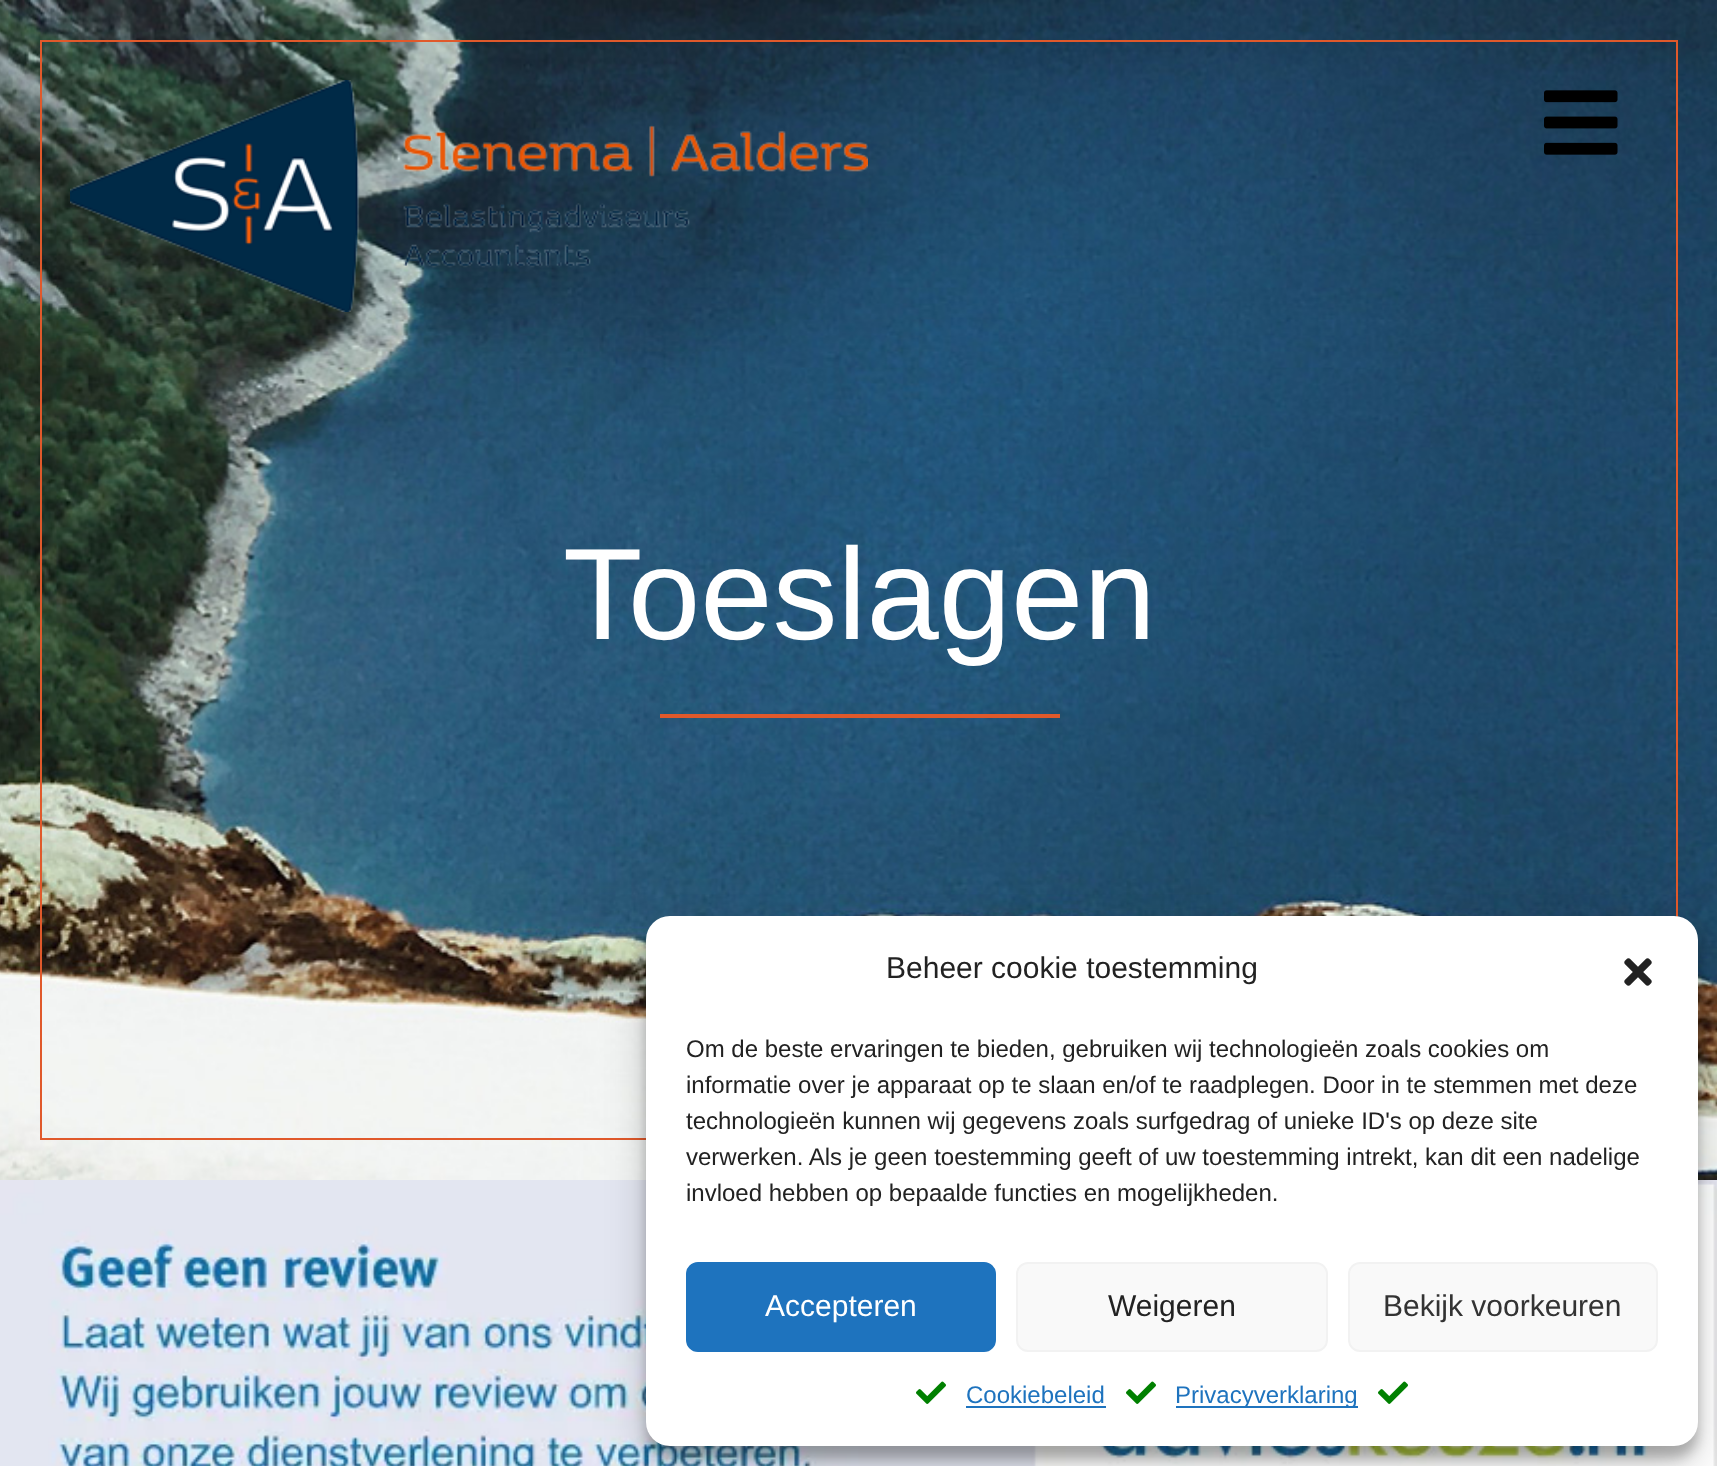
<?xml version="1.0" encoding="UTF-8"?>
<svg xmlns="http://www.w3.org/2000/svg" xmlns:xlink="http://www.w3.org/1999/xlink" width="1717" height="1466">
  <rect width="100%" height="100%" fill="#ffffff" />
  <image x="0" y="0" width="1717" height="1180" xlink:href="image1.png" />
  <rect x="41" y="41" width="1636" height="1098" fill="none" stroke="#e0592b" stroke-width="2" />
  <image x="70" y="80" width="798" height="232" xlink:href="image2.png" />
  <image x="1544" y="90" width="74" height="65" xlink:href="image3.png" />
  <rect x="660" y="714" width="400" height="4" fill="#e0592b" />
  <image x="0" y="1180" width="1717" height="286" xlink:href="image4.png" />
  <rect x="646" y="928" width="1052" height="530" rx="24" fill="#000000" fill-opacity="0.23" filter="blur(6px)" />
  <rect x="646" y="936" width="1052" height="530" rx="24" fill="#000000" fill-opacity="0.19" filter="blur(20px)" />
  <rect x="646" y="916" width="1052" height="530" rx="24" fill="#ffffff" />
  <image x="1624" y="958" width="28" height="28" xlink:href="image5.png" />
  <rect x="687" y="1263" width="308" height="88" rx="11" fill="#1e73be" stroke="#1e73be" stroke-width="2" />
  <rect x="1017" y="1263" width="310" height="88" rx="11" fill="#f9f9f9" stroke="#f2f2f2" stroke-width="2" />
  <rect x="1349" y="1263" width="308" height="88" rx="11" fill="#f9f9f9" stroke="#f2f2f2" stroke-width="2" />
  <image x="916" y="1381" width="30" height="23" xlink:href="image6.png" />
  <rect x="966" y="1406" width="140" height="2" fill="#1e73be" />
  <image x="1126" y="1381" width="30" height="23" xlink:href="image6.png" />
  <rect x="1176" y="1406" width="182" height="2" fill="#1e73be" />
  <image x="1378" y="1381" width="30" height="23" xlink:href="image6.png" />
  <text x="563" y="639" style="font-family: Liberation Sans; font-size: 130px; fill: #ffffff">Toeslagen</text>
  <text x="886" y="978" style="font-family: Liberation Sans; font-size: 30px; fill: #222222">Beheer cookie toestemming</text>
  <text x="686" y="1057" style="font-family: Liberation Sans; font-size: 24px; fill: #222222">Om de beste ervaringen te bieden, gebruiken wij technologieën zoals cookies om</text>
  <text x="686" y="1093" style="font-family: Liberation Sans; font-size: 24px; fill: #222222">informatie over je apparaat op te slaan en/of te raadplegen. Door in te stemmen met deze</text>
  <text x="686" y="1129" style="font-family: Liberation Sans; font-size: 24px; fill: #222222">technologieën kunnen wij gegevens zoals surfgedrag of unieke ID's op deze site</text>
  <text x="686" y="1165" style="font-family: Liberation Sans; font-size: 24px; fill: #222222">verwerken. Als je geen toestemming geeft of uw toestemming intrekt, kan dit een nadelige</text>
  <text x="686" y="1201" style="font-family: Liberation Sans; font-size: 24px; fill: #222222">invloed hebben op bepaalde functies en mogelijkheden.</text>
  <text x="765" y="1316" style="font-family: Liberation Sans; font-size: 30px; fill: #ffffff">Accepteren</text>
  <text x="1108" y="1316" style="font-family: Liberation Sans; font-size: 30px; fill: #222222">Weigeren</text>
  <text x="1383" y="1316" style="font-family: Liberation Sans; font-size: 30px; fill: #333333">Bekijk voorkeuren</text>
  <text x="966" y="1403" style="font-family: Liberation Sans; font-size: 24px; fill: #1e73be">Cookiebeleid</text>
  <text x="1175" y="1403" style="font-family: Liberation Sans; font-size: 24px; fill: #1e73be">Privacyverklaring</text>
</svg>
